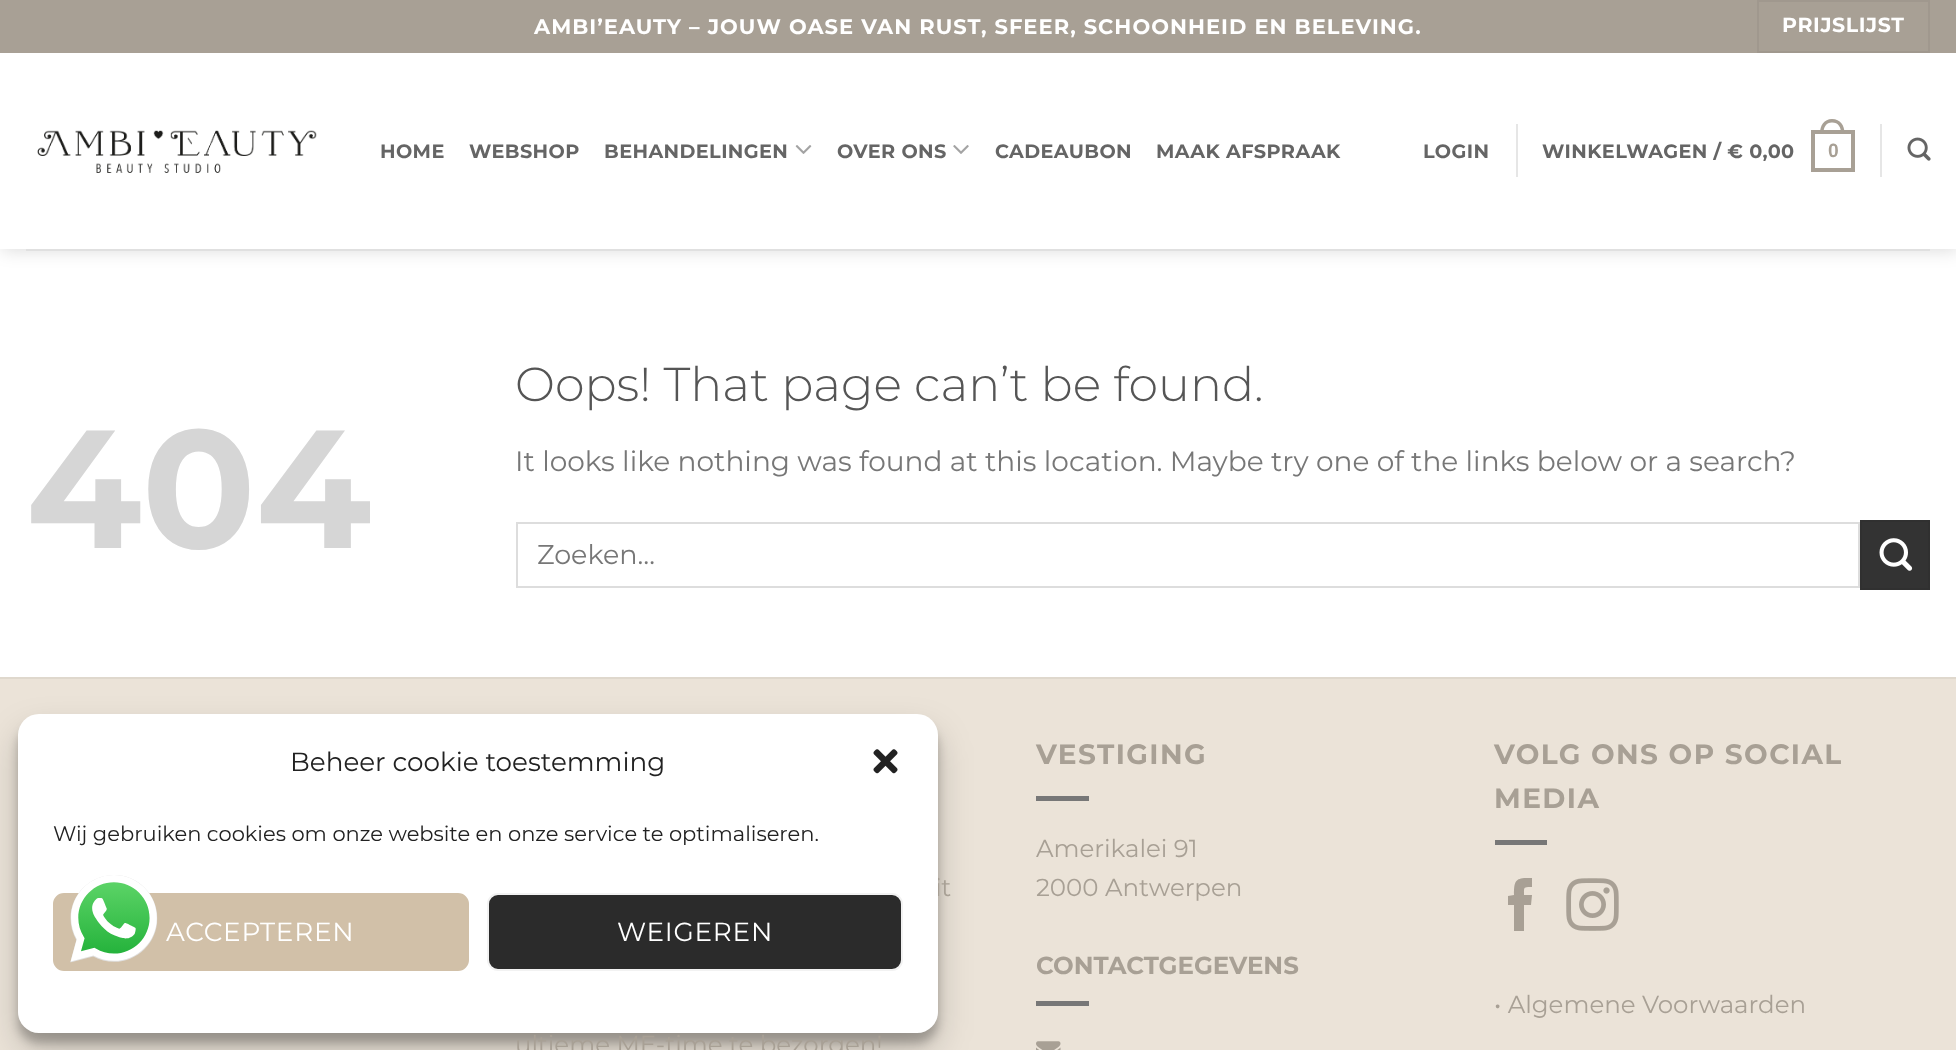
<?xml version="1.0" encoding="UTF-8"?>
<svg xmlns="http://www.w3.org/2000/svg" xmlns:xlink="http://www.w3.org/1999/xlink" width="1956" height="1050">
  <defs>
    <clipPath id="clip1"><path d="M 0 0 h 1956 v 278 h -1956 z m 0 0 h 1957 v 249 h -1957 z" clip-rule="evenodd" /></clipPath>
  </defs>
  <rect width="100%" height="100%" fill="#ffffff" />
  <g clip-path="url(#clip1)">
    <rect x="2" y="2" width="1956" height="248" fill="#000000" fill-opacity="0.15" filter="blur(9px)" />
  </g>
  <rect width="1956" height="53" fill="#a8a095" />
  <rect x="1758" y="1" width="171" height="51" fill="none" stroke="#a0988e" stroke-width="2" />
  <image x="37" y="130" width="280" height="43" xlink:href="image1.png" />
  <image x="795" y="145" width="17" height="9" xlink:href="image2.png" />
  <image x="953" y="145" width="16" height="9" xlink:href="image3.png" />
  <rect x="1516" y="124" width="2" height="53" fill="#e6e6e6" />
  <rect x="1813" y="132" width="40" height="38" fill="none" stroke="#a8a095" stroke-width="4" />
  <path d="M 1832 119 c 8.5 0 12.5 6.5 12.5 14 h -24.5 c 0 -7.5 4 -14 12 -14 z m 0 3.5 c 6.5 0 9 5 9 10.5 h -17.5 c 0 -5.5 2.5 -10.5 8.5 -10.5 z" fill="#a8a095" fill-rule="evenodd" />
  <rect x="1880" y="124" width="2" height="53" fill="#e6e6e6" />
  <image x="1907" y="137" width="24" height="24" xlink:href="image4.png" />
  <rect x="26" y="249" width="1904" height="2" fill="#e0e0e0" />
  <rect y="248" width="1956" height="1" fill="#ffffff" fill-opacity="0.9" />
  <rect x="517" y="523" width="1342" height="64" fill="none" stroke="#dddddd" stroke-width="2" />
  <rect x="1861" y="521" width="68" height="68" fill="#333333" stroke="#303030" stroke-width="2" />
  <image x="1879" y="538" width="34" height="33" xlink:href="image5.png" />
  <rect y="679" width="1956" height="371" fill="#ebe3d8" />
  <rect y="677" width="1956" height="2" fill="#dfd8cd" />
  <rect x="1036" y="796" width="53" height="5" fill="#777777" />
  <rect x="1036" y="1001" width="53" height="5" fill="#777777" />
  <image x="1036" y="1041" width="25" height="9" xlink:href="image6.png" />
  <rect x="1495" y="840" width="52" height="5" fill="#777777" />
  <path d="M 1524 931 h -10 v -26 h -6 v -9 l 6 -1 c 0 -16 2 -17 18 -17 v 9 c -9 0 -8 0 -8 8 h 8 l -1 10 h -7 z" fill="#a8a095" />
  <image x="1566" y="878" width="53" height="53" xlink:href="image7.png" />
  <rect x="18" y="725" width="920" height="318" rx="21" fill="#000000" fill-opacity="0.23" filter="blur(5px)" />
  <rect x="18" y="732" width="920" height="318" rx="21" fill="#000000" fill-opacity="0.19" filter="blur(17.5px)" />
  <text x="534" y="34" style="font-family: Montserrat; font-size: 21px; font-weight: bold; letter-spacing: 1.05px; fill: #ffffff">AMBI’EAUTY – JOUW OASE VAN RUST, SFEER, SCHOONHEID EN BELEVING.</text>
  <text x="1782" y="32" style="font-family: Montserrat; font-size: 20.5px; font-weight: bold; letter-spacing: 0.6px; fill: #ffffff">PRIJSLIJST</text>
  <text x="380" y="158" style="font-family: Montserrat; font-size: 19.25px; font-weight: bold; letter-spacing: 0.4px; fill: #656565">HOME</text>
  <text x="469" y="158" style="font-family: Montserrat; font-size: 19.25px; font-weight: bold; letter-spacing: 0.4px; fill: #656565">WEBSHOP</text>
  <text x="604" y="158" style="font-family: Montserrat; font-size: 19.25px; font-weight: bold; letter-spacing: 0.4px; fill: #656565">BEHANDELINGEN</text>
  <text x="837" y="158" style="font-family: Montserrat; font-size: 19.25px; font-weight: bold; letter-spacing: 0.4px; fill: #656565">OVER ONS</text>
  <text x="995" y="158" style="font-family: Montserrat; font-size: 19.25px; font-weight: bold; letter-spacing: 0.4px; fill: #656565">CADEAUBON</text>
  <text x="1156" y="158" style="font-family: Montserrat; font-size: 19.25px; font-weight: bold; letter-spacing: 0.4px; fill: #656565">MAAK AFSPRAAK</text>
  <text x="1423" y="158" style="font-family: Montserrat; font-size: 19.25px; font-weight: bold; letter-spacing: 0.4px; fill: #656565">LOGIN</text>
  <text x="1542" y="158" style="font-family: Montserrat; font-size: 19.25px; font-weight: bold; letter-spacing: 0.4px; fill: #656565">WINKELWAGEN / € 0,00</text>
  <text x="1828" y="157" style="font-family: Liberation Sans; font-size: 19.25px; font-weight: bold; letter-spacing: 0.4px; fill: #a8a095">0</text>
  <text x="26" y="548" style="font-family: Montserrat; font-size: 168px; font-weight: bold; fill: #d6d6d6">404</text>
  <text x="515" y="401" style="font-family: Montserrat; font-size: 47.6px; font-weight: 300; fill: #555555">Oops! That page can’t be found.</text>
  <text x="515" y="471" style="font-family: Montserrat; font-size: 28px; fill: #777777">It looks like nothing was found at this location. Maybe try one of the links below or a search?</text>
  <text x="537" y="564" style="font-family: Montserrat; font-size: 27px; fill: #777777">Zoeken…</text>
  <text x="935" y="896" style="font-family: Montserrat; font-size: 24.5px; fill: #a8a095">it</text>
  <text x="515" y="1053" style="font-family: Montserrat; font-size: 24.5px; fill: #a8a095">ultieme ME-time te bezorgen!</text>
  <text x="1036" y="764" style="font-family: Montserrat; font-size: 28px; font-weight: bold; letter-spacing: 1.4px; fill: #a8a095">VESTIGING</text>
  <text x="1036" y="857" style="font-family: Montserrat; font-size: 24.5px; fill: #a8a095">Amerikalei 91</text>
  <text x="1036" y="896" style="font-family: Montserrat; font-size: 24.5px; fill: #a8a095">2000 Antwerpen</text>
  <text x="1036" y="974" style="font-family: Montserrat; font-size: 24.5px; font-weight: bold; fill: #a8a095">CONTACTGEGEVENS</text>
  <text x="1494" y="764" style="font-family: Montserrat; font-size: 28px; font-weight: bold; letter-spacing: 1.4px; fill: #a8a095">VOLG ONS OP SOCIAL</text>
  <text x="1494" y="808" style="font-family: Montserrat; font-size: 28px; font-weight: bold; letter-spacing: 1.4px; fill: #a8a095">MEDIA</text>
  <text x="1494" y="1013" style="font-family: Montserrat; font-size: 24.5px; fill: #a8a095">• Algemene Voorwaarden</text>
  <rect x="18" y="714" width="920" height="319" rx="21" fill="#ffffff" />
  <text x="290" y="771" style="font-family: Montserrat; font-size: 26.25px; fill: #222222">Beheer cookie toestemming</text>
  <image x="873" y="749" width="25" height="25" xlink:href="image8.png" />
  <text x="53" y="841" style="font-family: Montserrat; font-size: 21px; fill: #222222">Wij gebruiken cookies om onze website en onze service te optimaliseren.</text>
  <rect x="54" y="894" width="414" height="76" rx="10" fill="#d1c0a8" stroke="#d1c0a8" stroke-width="2" />
  <text x="166" y="941" style="font-family: Montserrat; font-size: 26.25px; letter-spacing: 0.75px; fill: #ffffff">ACCEPTEREN</text>
  <rect x="488" y="894" width="414" height="76" rx="10" fill="#2b2b2b" stroke="#f2f2f2" stroke-width="2" />
  <text x="617" y="941" style="font-family: Montserrat; font-size: 26.25px; letter-spacing: 0.75px; fill: #ffffff">WEIGEREN</text>
  <image x="70" y="875" width="88" height="88" xlink:href="image9.png" />
</svg>
